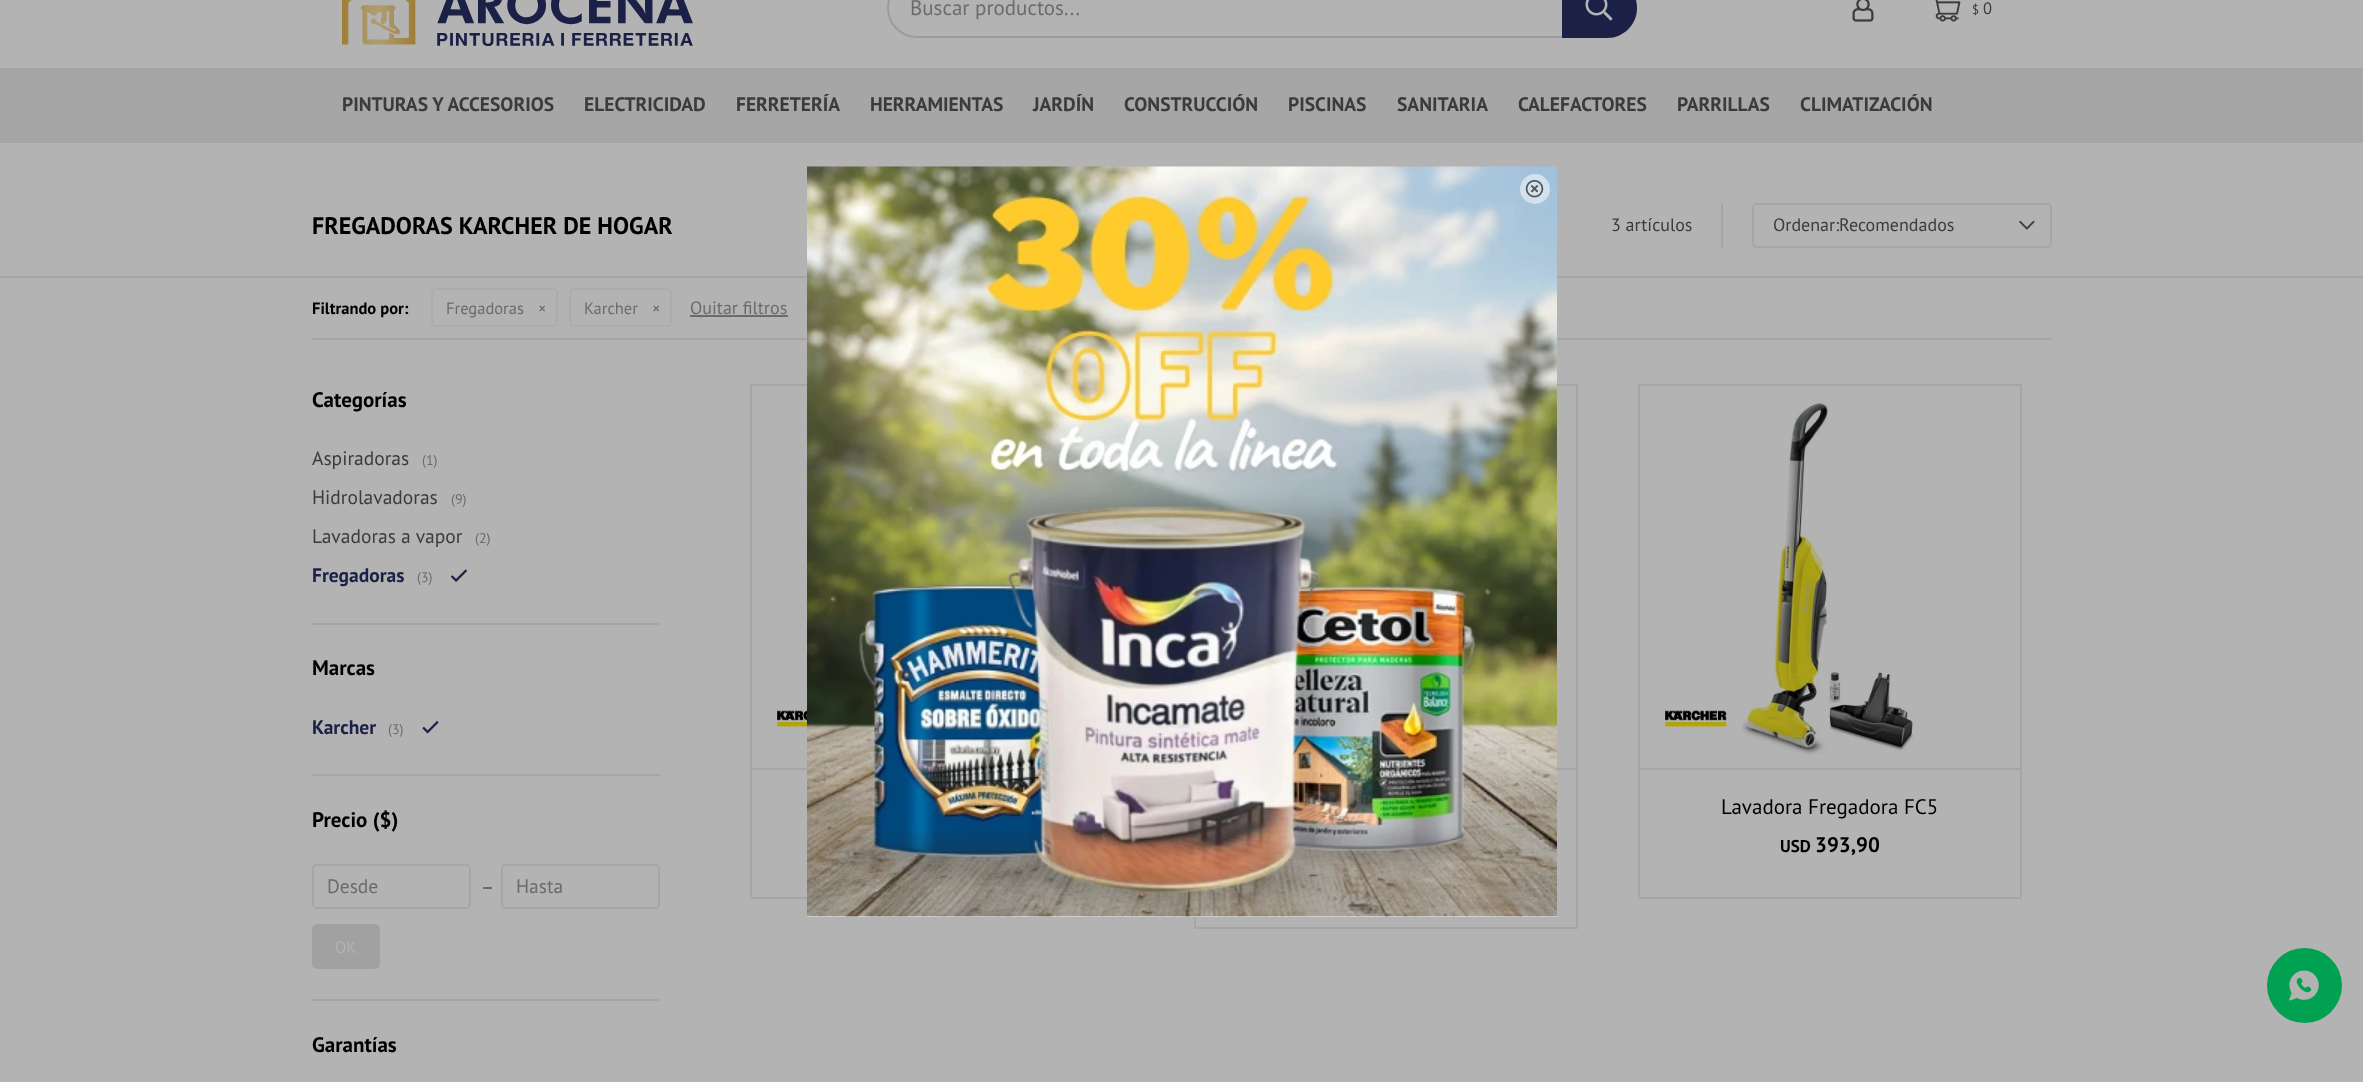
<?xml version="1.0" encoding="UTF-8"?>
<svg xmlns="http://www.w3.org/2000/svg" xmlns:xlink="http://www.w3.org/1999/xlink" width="2363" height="1082">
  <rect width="100%" height="100%" fill="#b3b3b3" />
  <image x="342" y="0" width="351" height="46" xlink:href="image1.png" />
  <rect x="888" y="-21" width="748" height="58" rx="29" fill="none" stroke="#9b9b9b" stroke-width="2" />
  <path d="M 1562 -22 h 45 c 16.5 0 30 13.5 30 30 c 0 16.5 -13.5 30 -30 30 h -45 z" fill="#1b2046" />
  <image x="1585" y="0" width="28" height="21" xlink:href="image2.png" />
  <image x="1852" y="0" width="22" height="22" xlink:href="image3.png" />
  <image x="1935" y="0" width="26" height="22" xlink:href="image4.png" />
  <rect y="68" width="2363" height="75" fill="#a6a6a6" />
  <rect x="1721" y="203" width="2" height="45" fill="#a6a6a6" />
  <image x="2019" y="220" width="16" height="10" xlink:href="image5.png" />
  <rect x="1753" y="204" width="298" height="43" rx="4" fill="none" stroke="#a6a6a6" stroke-width="2" />
  <rect y="276" width="2363" height="2" fill="#a6a6a6" />
  <rect x="312" y="338" width="1740" height="2" fill="#a6a6a6" />
  <rect x="432" y="289" width="125" height="37" rx="4" fill="none" stroke="#acacac" stroke-width="2" />
  <rect x="570" y="289" width="101" height="37" rx="4" fill="none" stroke="#acacac" stroke-width="2" />
  <rect x="690" y="315" width="98" height="2" fill="#6b6b6b" />
  <image x="451" y="569" width="16" height="13" xlink:href="image6.png" />
  <rect x="312" y="623" width="348" height="2" fill="#a6a6a6" />
  <image x="422" y="721" width="17" height="13" xlink:href="image7.png" />
  <rect x="312" y="774" width="348" height="2" fill="#a6a6a6" />
  <rect x="313" y="865" width="157" height="43" rx="4" fill="none" stroke="#a6a6a6" stroke-width="2" />
  <rect x="483" y="887" width="9" height="2" fill="#6b6b6b" />
  <rect x="502" y="865" width="157" height="43" rx="4" fill="none" stroke="#a6a6a6" stroke-width="2" />
  <rect x="312" y="924" width="68" height="45" rx="5" fill="#a1a1a1" />
  <rect x="312" y="999" width="348" height="2" fill="#a6a6a6" />
  <image x="777" y="710" width="30" height="17" xlink:href="image8.png" />
  <rect x="750" y="768" width="57" height="2" fill="#a6a6a6" />
  <rect x="751" y="385" width="382" height="513" fill="none" stroke="#a6a6a6" stroke-width="2" />
  <rect x="1557" y="768" width="21" height="2" fill="#a6a6a6" />
  <rect x="1195" y="385" width="382" height="543" fill="none" stroke="#a6a6a6" stroke-width="2" />
  <image x="1665" y="710" width="62" height="17" xlink:href="image9.png" />
  <image x="1742" y="403" width="172" height="352" xlink:href="image10.png" />
  <rect x="1638" y="768" width="384" height="2" fill="#a6a6a6" />
  <rect x="1639" y="385" width="382" height="513" fill="none" stroke="#a6a6a6" stroke-width="2" />
  <rect x="807" y="916" width="750" height="1" fill="#ffffff" />
  <image x="807" y="166" width="750" height="751" xlink:href="image11.png" />
  <circle cx="1535" cy="189" r="15" fill="#ffffff" fill-opacity="0.5" />
  <image x="1525" y="180" width="19" height="18" xlink:href="image12.png" />
  <circle cx="2304.5" cy="985.5" r="37.5" fill="#01a152" />
  <image x="2289" y="970" width="30" height="31" xlink:href="image13.png" />
  <text x="910" y="15" style="font-family: PT Sans; font-size: 21px; fill: #6b6b6b">Buscar productos...</text>
  <text x="1972" y="14" style="font-family: PT Sans; font-size: 13px; fill: #3b3b3b">$</text>
  <text x="1983" y="14" style="font-family: PT Sans; font-size: 16.5px; fill: #3b3b3b">0</text>
  <text x="342" y="111" style="font-family: PT Sans; font-size: 19.5px; font-weight: bold; fill: #3b3b3b">PINTURAS Y ACCESORIOS</text>
  <text x="584" y="111" style="font-family: PT Sans; font-size: 19.5px; font-weight: bold; fill: #3b3b3b">ELECTRICIDAD</text>
  <text x="736" y="111" style="font-family: PT Sans; font-size: 19.5px; font-weight: bold; fill: #3b3b3b">FERRETERÍA</text>
  <text x="870" y="111" style="font-family: PT Sans; font-size: 19.5px; font-weight: bold; fill: #3b3b3b">HERRAMIENTAS</text>
  <text x="1033" y="111" style="font-family: PT Sans; font-size: 19.5px; font-weight: bold; fill: #3b3b3b">JARDÍN</text>
  <text x="1124" y="111" style="font-family: PT Sans; font-size: 19.5px; font-weight: bold; fill: #3b3b3b">CONSTRUCCIÓN</text>
  <text x="1288" y="111" style="font-family: PT Sans; font-size: 19.5px; font-weight: bold; fill: #3b3b3b">PISCINAS</text>
  <text x="1397" y="111" style="font-family: PT Sans; font-size: 19.5px; font-weight: bold; fill: #3b3b3b">SANITARIA</text>
  <text x="1518" y="111" style="font-family: PT Sans; font-size: 19.5px; font-weight: bold; fill: #3b3b3b">CALEFACTORES</text>
  <text x="1677" y="111" style="font-family: PT Sans; font-size: 19.5px; font-weight: bold; fill: #3b3b3b">PARRILLAS</text>
  <text x="1800" y="111" style="font-family: PT Sans; font-size: 19.5px; font-weight: bold; fill: #3b3b3b">CLIMATIZACIÓN</text>
  <text x="312" y="234" style="font-family: PT Sans; font-size: 24px; font-weight: bold; fill: #000000">FREGADORAS KARCHER DE HOGAR</text>
  <text x="1611" y="231" style="font-family: PT Sans; font-size: 18px; fill: #3b3b3b">3 artículos</text>
  <text x="1773" y="231" style="font-family: PT Sans; font-size: 18px; fill: #3b3b3b">Ordenar:Recomendados</text>
  <text x="312" y="314" style="font-family: PT Sans; font-size: 16.5px; font-weight: bold; fill: #000000">Filtrando por:</text>
  <text x="446" y="314" style="font-family: PT Sans; font-size: 16.5px; fill: #6b6b6b">Fregadoras</text>
  <text x="538" y="314" style="font-family: PT Sans; font-size: 16.5px; fill: #6b6b6b">×</text>
  <text x="584" y="314" style="font-family: PT Sans; font-size: 16.5px; fill: #6b6b6b">Karcher</text>
  <text x="652" y="314" style="font-family: PT Sans; font-size: 16.5px; fill: #6b6b6b">×</text>
  <text x="690" y="314" style="font-family: PT Sans; font-size: 18px; fill: #6b6b6b">Quitar filtros</text>
  <text x="312" y="407" style="font-family: PT Sans; font-size: 21px; font-weight: bold; fill: #000000">Categorías</text>
  <text x="312" y="465" style="font-family: PT Sans; font-size: 19.5px; fill: #3b3b3b">Aspiradoras</text>
  <text x="422" y="465" style="font-family: PT Sans; font-size: 14px; fill: #6b6b6b">(1)</text>
  <text x="312" y="504" style="font-family: PT Sans; font-size: 19.5px; fill: #3b3b3b">Hidrolavadoras</text>
  <text x="451" y="504" style="font-family: PT Sans; font-size: 14px; fill: #6b6b6b">(9)</text>
  <text x="312" y="543" style="font-family: PT Sans; font-size: 19.5px; fill: #3b3b3b">Lavadoras a vapor</text>
  <text x="475" y="543" style="font-family: PT Sans; font-size: 14px; fill: #6b6b6b">(2)</text>
  <text x="312" y="582" style="font-family: PT Sans; font-size: 19.5px; font-weight: bold; fill: #1b2046">Fregadoras</text>
  <text x="417" y="582" style="font-family: PT Sans; font-size: 14px; fill: #6b6b6b">(3)</text>
  <text x="312" y="675" style="font-family: PT Sans; font-size: 21px; font-weight: bold; fill: #000000">Marcas</text>
  <text x="312" y="734" style="font-family: PT Sans; font-size: 19.5px; font-weight: bold; fill: #1b2046">Karcher</text>
  <text x="388" y="734" style="font-family: PT Sans; font-size: 14px; fill: #6b6b6b">(3)</text>
  <text x="312" y="827" style="font-family: PT Sans; font-size: 21px; font-weight: bold; fill: #000000">Precio ($)</text>
  <text x="327" y="893" style="font-family: PT Sans; font-size: 19.5px; fill: #6b6b6b">Desde</text>
  <text x="516" y="893" style="font-family: PT Sans; font-size: 19.5px; fill: #6b6b6b">Hasta</text>
  <text x="335" y="953" style="font-family: PT Sans; font-size: 16.5px; fill: #b3b3b3">OK</text>
  <text x="312" y="1052" style="font-family: PT Sans; font-size: 21px; font-weight: bold; fill: #000000">Garantías</text>
  <text x="1721" y="814" style="font-family: PT Sans; font-size: 21px; fill: #000000">Lavadora Fregadora FC5</text>
  <text x="1780" y="852" style="font-family: PT Sans; font-size: 17px; font-weight: bold; fill: #000000">USD</text>
  <text x="1815" y="852" style="font-family: PT Sans; font-size: 21px; font-weight: bold; fill: #000000">393,90</text>
</svg>
